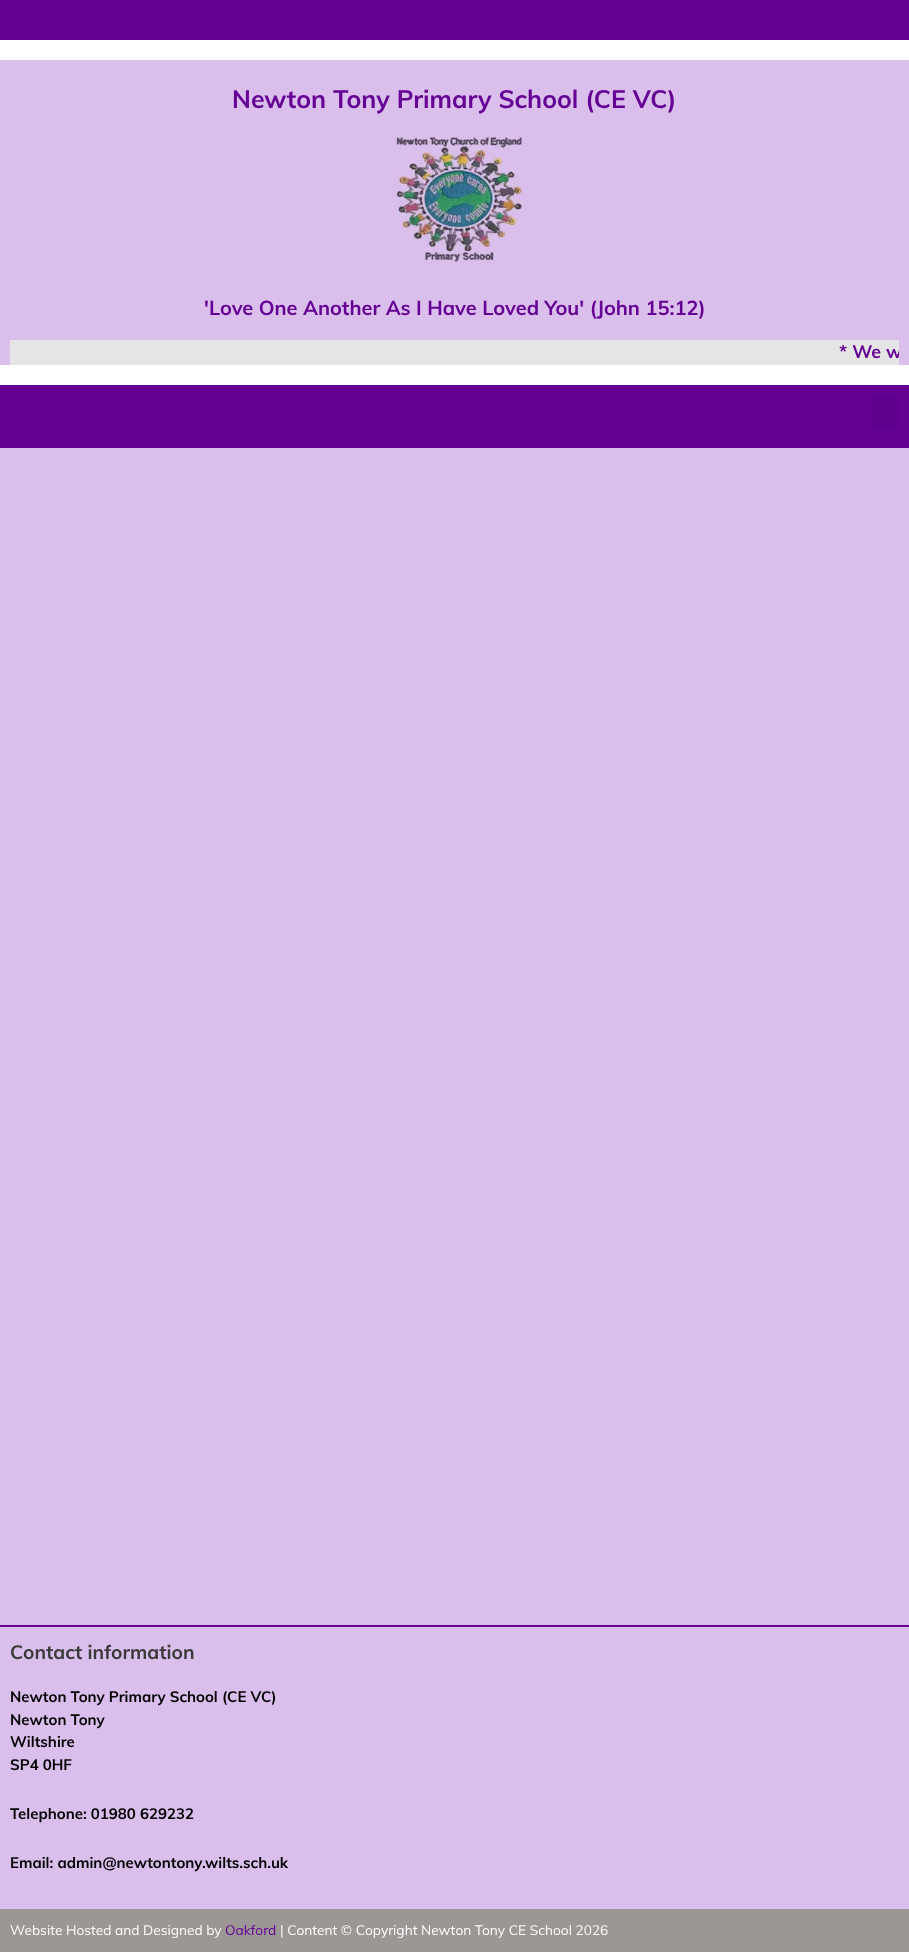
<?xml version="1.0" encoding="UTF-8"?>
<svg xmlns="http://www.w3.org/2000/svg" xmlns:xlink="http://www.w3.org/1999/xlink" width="909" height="1952">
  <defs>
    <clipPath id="clip1"><rect x="10" y="340" width="889" height="21" /></clipPath>
  </defs>
  <rect width="100%" height="100%" fill="#dabeeb" />
  <rect width="909" height="40" fill="#650095" />
  <rect y="40" width="909" height="20" fill="#ffffff" />
  <image x="393" y="135" width="132" height="128" xlink:href="image1.png" />
  <rect x="10" y="340" width="889" height="25" fill="#e5e5e5" />
  <rect y="385" width="909" height="63" fill="#650095" />
  <rect y="365" width="909" height="20" fill="#ffffff" />
  <rect x="871" y="395" width="28" height="33" rx="3" fill="#60008e" />
  <rect y="1625" width="909" height="2" fill="#650095" />
  <rect y="1909" width="909" height="43" fill="#9c9695" />
  <text x="232" y="108" style="font-family: Muli; font-size: 25px; font-weight: bold; fill: #650095">Newton Tony Primary School (CE VC)</text>
  <text x="204" y="315" style="font-family: Muli; font-size: 20px; font-weight: bold; fill: #650095">'Love One Another As I Have Loved You' (John 15:12)</text>
  <g clip-path="url(#clip1)">
    <text x="839" y="358" style="font-family: Muli; font-size: 18px; font-weight: bold; fill: #650095">* We w</text>
  </g>
  <text x="10" y="1659" style="font-family: Muli; font-size: 19.25px; font-weight: bold; fill: #3a3a3a">Contact information</text>
  <text x="10" y="1702" style="font-family: Muli; font-size: 15px; font-weight: bold; fill: #000000">Newton Tony Primary School (CE VC)</text>
  <text x="10" y="1725" style="font-family: Muli; font-size: 15px; font-weight: bold; fill: #000000">Newton Tony</text>
  <text x="10" y="1747" style="font-family: Muli; font-size: 15px; font-weight: bold; fill: #000000">Wiltshire</text>
  <text x="10" y="1770" style="font-family: Muli; font-size: 15px; font-weight: bold; fill: #000000">SP4 0HF</text>
  <text x="10" y="1819" style="font-family: Muli; font-size: 15px; font-weight: bold; fill: #000000">Telephone: 01980 629232</text>
  <text x="10" y="1868" style="font-family: Muli; font-size: 15px; font-weight: bold; fill: #000000">Email: admin@newtontony.wilts.sch.uk</text>
  <text x="10" y="1935" style="font-family: Muli; font-size: 13.7px; fill: #ffffff">Website Hosted and Designed by</text>
  <text x="225" y="1935" style="font-family: Muli; font-size: 13.7px; fill: #650095">Oakford</text>
  <text x="280" y="1935" style="font-family: Muli; font-size: 13.7px; fill: #ffffff">| Content © Copyright Newton Tony CE School 2026</text>
</svg>
